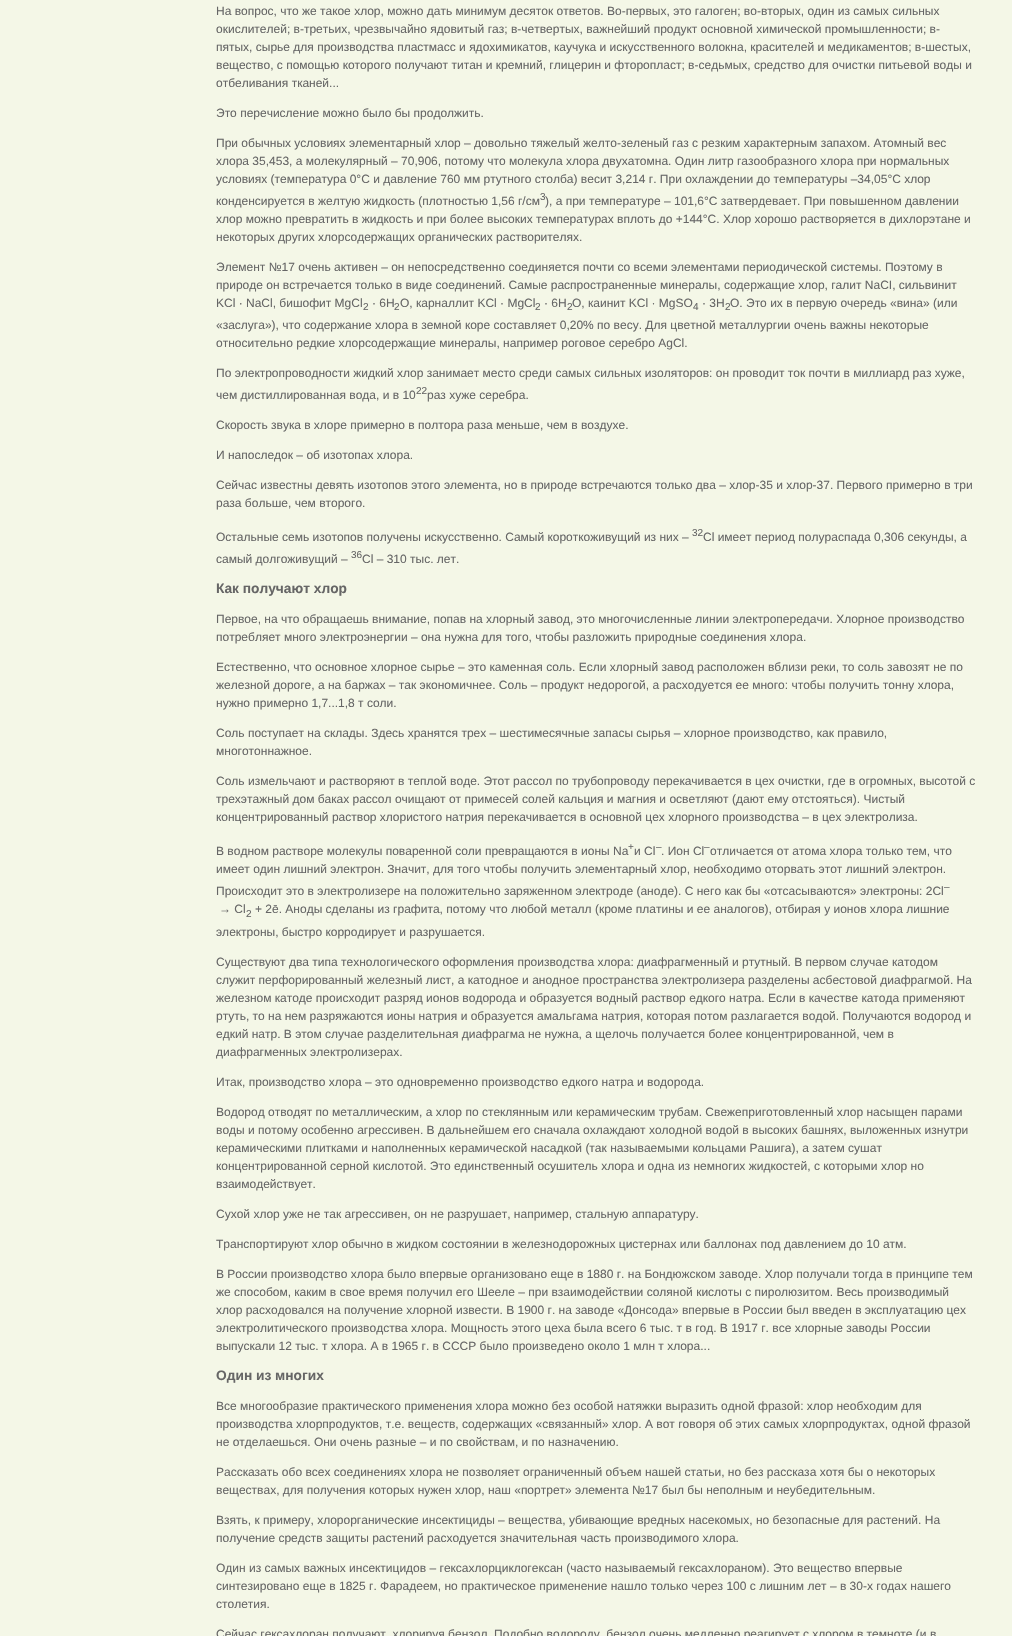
void draw(SkCanvas* canvas) {
  SkPaint paint;
  paint.setAntiAlias(true);
  auto face = [&](const char* family, int weight, float size, bool italic = false) {
    SkFontStyle style(weight, SkFontStyle::kNormal_Width,
      italic ? SkFontStyle::kItalic_Slant : SkFontStyle::kUpright_Slant);
    SkFont result(fontMgr->matchFamilyStyle(family, style), size);
    result.setSubpixel(true);
    return result;
  };
  canvas->clear(0xfff4f7e7);
  auto f0 = face("Liberation Sans", 400, 12);
  paint.setColor(0xff666666);
  {
    const struct { const char* s; float x, y; } items[] = {
      {"На вопрос, что же такое хлор, можно дать минимум десяток ответов. Во-первых, это галоген; во-вторых, один из самых сильных", 216, 15},
      {"окислителей; в-третьих, чрезвычайно ядовитый газ; в-четвертых, важнейший продукт основной химической промышленности; в-", 216, 33},
      {"пятых, сырье для производства пластмасс и ядохимикатов, каучука и искусственного волокна, красителей и медикаментов; в-шестых,", 216, 51},
      {"вещество, с помощью которого получают титан и кремний, глицерин и фторопласт; в-седьмых, средство для очистки питьевой воды и", 216, 69},
      {"отбеливания тканей...", 216, 87},
      {"Это перечисление можно было бы продолжить.", 216, 117},
      {"При обычных условиях элементарный хлор – довольно тяжелый желто-зеленый газ с резким характерным запахом. Атомный вес", 216, 147},
      {"хлора 35,453, а молекулярный – 70,906, потому что молекула хлора двухатомна. Один литр газообразного хлора при нормальных", 216, 165},
      {"условиях (температура 0°C и давление 760 мм ртутного столба) весит 3,214 г. При охлаждении до температуры –34,05°C хлор", 216, 183},
      {"конденсируется в желтую жидкость (плотностью 1,56 г/см", 216, 205},
    };
    for (auto [s, x, y] : items) {
      canvas->drawString(s, x, y, f0, paint);
    }
  }
  auto f1 = face("Liberation Sans", 400, 10);
  canvas->drawString("3", 540, 200, f1, paint);
  {
    const struct { const char* s; float x, y; } items[] = {
      {"), а при температуре – 101,6°C затвердевает. При повышенном давлении", 545, 205},
      {"хлор можно превратить в жидкость и при более высоких температурах вплоть до +144°C. Хлор хорошо растворяется в дихлорэтане и", 216, 223},
      {"некоторых других хлорсодержащих органических растворителях.", 216, 241},
      {"Элемент №17 очень активен – он непосредственно соединяется почти со всеми элементами периодической системы. Поэтому в", 216, 271},
      {"природе он встречается только в виде соединений. Самые распространенные минералы, содержащие хлор, галит NaCI, сильвинит", 216, 289},
      {"KCl · NaCl, бишофит MgCl", 216, 307},
    };
    for (auto [s, x, y] : items) {
      canvas->drawString(s, x, y, f0, paint);
    }
  }
  canvas->drawString("2", 363, 310, f1, paint);
  canvas->drawString("· 6H", 372, 307, f0, paint);
  canvas->drawString("2", 394, 310, f1, paint);
  canvas->drawString("O, карналлит KCl · MgCl", 400, 307, f0, paint);
  canvas->drawString("2", 535, 310, f1, paint);
  canvas->drawString("· 6Н", 544, 307, f0, paint);
  canvas->drawString("2", 567, 310, f1, paint);
  canvas->drawString("O, каинит KCl · МgSO", 572, 307, f0, paint);
  canvas->drawString("4", 693, 310, f1, paint);
  canvas->drawString("· 3Н", 702, 307, f0, paint);
  canvas->drawString("2", 725, 310, f1, paint);
  {
    const struct { const char* s; float x, y; } items[] = {
      {"О. Это их в первую очередь «вина» (или", 730, 307},
      {"«заслуга»), что содержание хлора в земной коре составляет 0,20% по весу. Для цветной металлургии очень важны некоторые", 216, 329},
      {"относительно редкие хлорсодержащие минералы, например роговое серебро AgСl.", 216, 347},
      {"По электропроводности жидкий хлор занимает место среди самых сильных изоляторов: он проводит ток почти в миллиард раз хуже,", 216, 377},
      {"чем дистиллированная вода, и в 10", 216, 399},
    };
    for (auto [s, x, y] : items) {
      canvas->drawString(s, x, y, f0, paint);
    }
  }
  canvas->drawString("22", 416, 394, f1, paint);
  {
    const struct { const char* s; float x, y; } items[] = {
      {"раз хуже серебра.", 427, 399},
      {"Скорость звука в хлоре примерно в полтора раза меньше, чем в воздухе.", 216, 429},
      {"И напоследок – об изотопах хлора.", 216, 459},
      {"Сейчас известны девять изотопов этого элемента, но в природе встречаются только два – хлор-35 и хлор-37. Первого примерно в три", 216, 489},
      {"раза больше, чем второго.", 216, 507},
      {"Остальные семь изотопов получены искусственно. Самый короткоживущий из них –", 216, 541},
    };
    for (auto [s, x, y] : items) {
      canvas->drawString(s, x, y, f0, paint);
    }
  }
  canvas->drawString("32", 692, 536, f1, paint);
  canvas->drawString("Cl имеет период полураспада 0,306 секунды, а", 703, 541, f0, paint);
  canvas->drawString("самый долгоживущий –", 216, 563, f0, paint);
  canvas->drawString("36", 351, 558, f1, paint);
  canvas->drawString("Cl – 310 тыс. лет.", 362, 563, f0, paint);
  auto f2 = face("Liberation Sans", 700, 13.75f);
  canvas->drawString("Как получают хлор", 216, 593, f2, paint);
  {
    const struct { const char* s; float x, y; } items[] = {
      {"Первое, на что обращаешь внимание, попав на хлорный завод, это многочисленные линии электропередачи. Хлорное производство", 216, 623},
      {"потребляет много электроэнергии – она нужна для того, чтобы разложить природные соединения хлора.", 216, 641},
      {"Естественно, что основное хлорное сырье – это каменная соль. Если хлорный завод расположен вблизи реки, то соль завозят не по", 216, 671},
      {"железной дороге, а на баржах – так экономичнее. Соль – продукт недорогой, а расходуется ее много: чтобы получить тонну хлора,", 216, 689},
      {"нужно примерно 1,7...1,8 т соли.", 216, 707},
      {"Соль поступает на склады. Здесь хранятся трех – шестимесячные запасы сырья – хлорное производство, как правило,", 216, 737},
      {"многотоннажное.", 216, 755},
      {"Соль измельчают и растворяют в теплой воде. Этот рассол по трубопроводу перекачивается в цех очистки, где в огромных, высотой с", 216, 785},
      {"трехэтажный дом баках рассол очищают от примесей солей кальция и магния и осветляют (дают ему отстояться). Чистый", 216, 803},
      {"концентрированный раствор хлористого натрия перекачивается в основной цех хлорного производства – в цех электролиза.", 216, 821},
      {"В водном растворе молекулы поваренной соли превращаются в ионы Na", 216, 855},
    };
    for (auto [s, x, y] : items) {
      canvas->drawString(s, x, y, f0, paint);
    }
  }
  canvas->drawString("+", 628, 850, f1, paint);
  canvas->drawString("и Сl", 634, 855, f0, paint);
  canvas->drawString("–", 656, 850, f1, paint);
  canvas->drawString(". Ион Сl", 661, 855, f0, paint);
  canvas->drawString("–", 704, 850, f1, paint);
  {
    const struct { const char* s; float x, y; } items[] = {
      {"отличается от атома хлора только тем, что", 710, 855},
      {"имеет один лишний электрон. Значит, для того чтобы получить элементарный хлор, необходимо оторвать этот лишний электрон.", 216, 873},
      {"Происходит это в электролизере на положительно заряженном электроде (аноде). С него как бы «отсасываются» электроны: 2Cl", 216, 895},
    };
    for (auto [s, x, y] : items) {
      canvas->drawString(s, x, y, f0, paint);
    }
  }
  canvas->drawString("–", 944, 890, f1, paint);
  canvas->drawString("→ Cl", 219, 913, f0, paint);
  canvas->drawString("2", 246, 917, f1, paint);
  {
    const struct { const char* s; float x, y; } items[] = {
      {"+ 2ē. Аноды сделаны из графита, потому что любой металл (кроме платины и ее аналогов), отбирая у ионов хлора лишние", 255, 913},
      {"электроны, быстро корродирует и разрушается.", 216, 936},
      {"Существуют два типа технологического оформления производства хлора: диафрагменный и ртутный. В первом случае катодом", 216, 966},
      {"служит перфорированный железный лист, а катодное и анодное пространства электролизера разделены асбестовой диафрагмой. На", 216, 984},
      {"железном катоде происходит разряд ионов водорода и образуется водный раствор едкого натра. Если в качестве катода применяют", 216, 1002},
      {"ртуть, то на нем разряжаются ионы натрия и образуется амальгама натрия, которая потом разлагается водой. Получаются водород и", 216, 1020},
      {"едкий натр. В этом случае разделительная диафрагма не нужна, а щелочь получается более концентрированной, чем в", 216, 1038},
      {"диафрагменных электролизерах.", 216, 1056},
      {"Итак, производство хлора – это одновременно производство едкого натра и водорода.", 216, 1086},
      {"Водород отводят по металлическим, а хлор по стеклянным или керамическим трубам. Свежеприготовленный хлор насыщен парами", 216, 1116},
      {"воды и потому особенно агрессивен. В дальнейшем его сначала охлаждают холодной водой в высоких башнях, выложенных изнутри", 216, 1134},
      {"керамическими плитками и наполненных керамической насадкой (так называемыми кольцами Рашига), а затем сушат", 216, 1152},
      {"концентрированной серной кислотой. Это единственный осушитель хлора и одна из немногих жидкостей, с которыми хлор но", 216, 1170},
      {"взаимодействует.", 216, 1188},
      {"Сухой хлор уже не так агрессивен, он не разрушает, например, стальную аппаратуру.", 216, 1218},
      {"Транспортируют хлор обычно в жидком состоянии в железнодорожных цистернах или баллонах под давлением до 10 атм.", 216, 1248},
      {"В России производство хлора было впервые организовано еще в 1880 г. на Бондюжском заводе. Хлор получали тогда в принципе тем", 216, 1278},
      {"же способом, каким в свое время получил его Шееле – при взаимодействии соляной кислоты с пиролюзитом. Весь производимый", 216, 1296},
      {"хлор расходовался на получение хлорной извести. В 1900 г. на заводе «Донсода» впервые в России был введен в эксплуатацию цех", 216, 1314},
      {"электролитического производства хлора. Мощность этого цеха была всего 6 тыс. т в год. В 1917 г. все хлорные заводы России", 216, 1332},
      {"выпускали 12 тыс. т хлора. А в 1965 г. в СССР было произведено около 1 млн т хлора...", 216, 1350},
    };
    for (auto [s, x, y] : items) {
      canvas->drawString(s, x, y, f0, paint);
    }
  }
  canvas->drawString("Один из многих", 216, 1380, f2, paint);
  {
    const struct { const char* s; float x, y; } items[] = {
      {"Все многообразие практического применения хлора можно без особой натяжки выразить одной фразой: хлор необходим для", 216, 1410},
      {"производства хлорпродуктов, т.е. веществ, содержащих «связанный» хлор. А вот говоря об этих самых хлорпродуктах, одной фразой", 216, 1428},
      {"не отделаешься. Они очень разные – и по свойствам, и по назначению.", 216, 1446},
      {"Рассказать обо всех соединениях хлора не позволяет ограниченный объем нашей статьи, но без рассказа хотя бы о некоторых", 216, 1476},
      {"веществах, для получения которых нужен хлор, наш «портрет» элемента №17 был бы неполным и неубедительным.", 216, 1494},
      {"Взять, к примеру, хлорорганические инсектициды – вещества, убивающие вредных насекомых, но безопасные для растений. На", 216, 1524},
      {"получение средств защиты растений расходуется значительная часть производимого хлора.", 216, 1542},
      {"Один из самых важных инсектицидов – гексахлорциклогексан (часто называемый гексахлораном). Это вещество впервые", 216, 1572},
      {"синтезировано еще в 1825 г. Фарадеем, но практическое применение нашло только через 100 с лишним лет – в 30-х годах нашего", 216, 1590},
      {"столетия.", 216, 1608},
      {"Сейчас гексахлоран получают, хлорируя бензол. Подобно водороду, бензол очень медленно реагирует с хлором в темноте (и в", 216, 1638},
    };
    for (auto [s, x, y] : items) {
      canvas->drawString(s, x, y, f0, paint);
    }
  }
}
